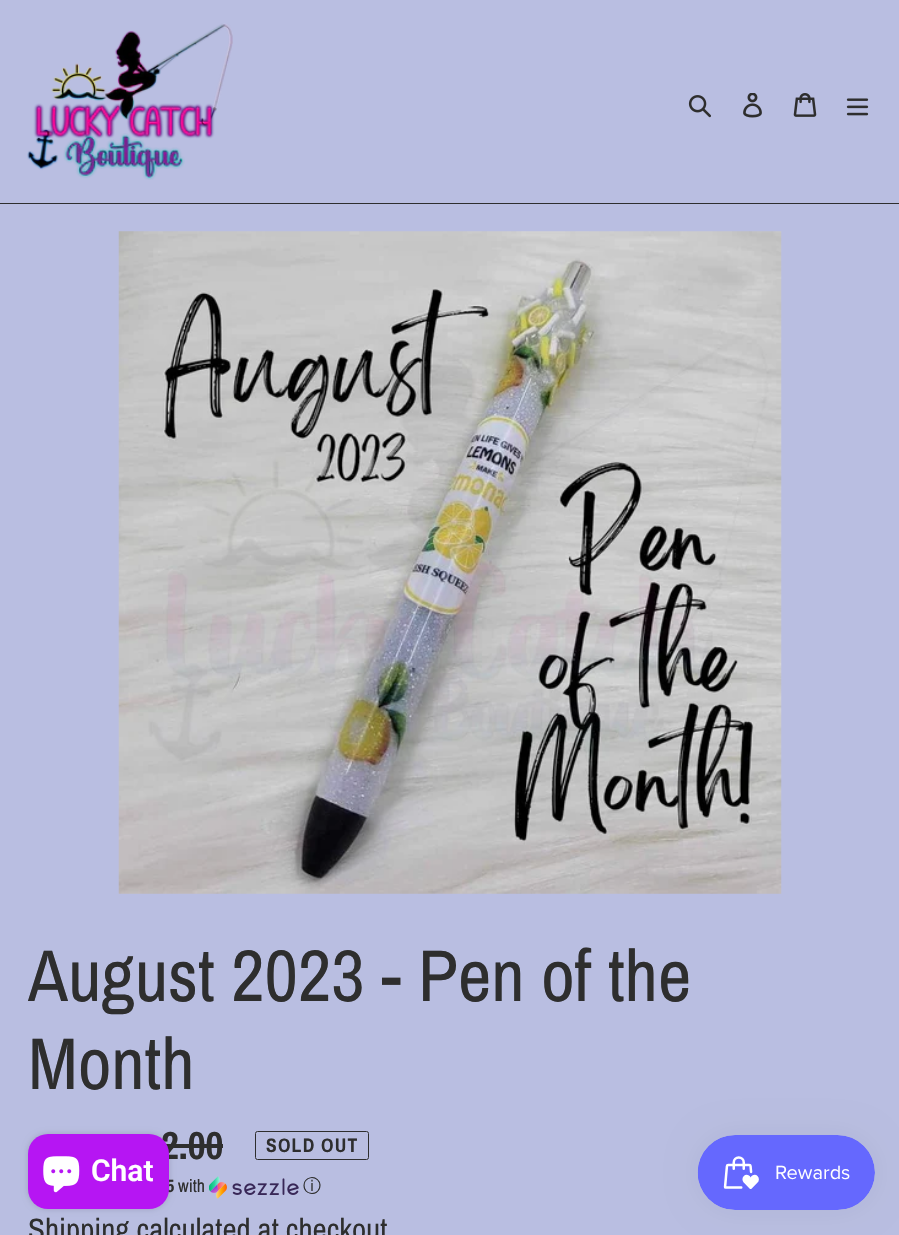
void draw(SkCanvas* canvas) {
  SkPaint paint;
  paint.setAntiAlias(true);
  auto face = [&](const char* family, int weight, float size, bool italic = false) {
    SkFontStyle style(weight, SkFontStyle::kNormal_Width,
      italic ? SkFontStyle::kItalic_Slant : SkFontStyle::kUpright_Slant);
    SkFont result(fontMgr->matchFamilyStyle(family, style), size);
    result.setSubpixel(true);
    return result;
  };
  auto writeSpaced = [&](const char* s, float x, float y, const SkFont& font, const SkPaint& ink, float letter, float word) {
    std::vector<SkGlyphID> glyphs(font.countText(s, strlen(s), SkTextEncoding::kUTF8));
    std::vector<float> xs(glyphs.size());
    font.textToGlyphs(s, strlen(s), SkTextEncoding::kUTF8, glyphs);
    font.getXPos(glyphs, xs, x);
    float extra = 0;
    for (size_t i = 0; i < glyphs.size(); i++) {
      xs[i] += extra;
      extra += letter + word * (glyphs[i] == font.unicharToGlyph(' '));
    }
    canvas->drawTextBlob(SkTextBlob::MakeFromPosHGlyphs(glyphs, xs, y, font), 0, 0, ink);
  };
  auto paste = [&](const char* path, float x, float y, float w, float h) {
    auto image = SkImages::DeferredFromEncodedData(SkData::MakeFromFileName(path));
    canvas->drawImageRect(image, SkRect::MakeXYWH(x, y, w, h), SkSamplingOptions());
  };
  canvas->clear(0xffb9bee1);
  paint.setColor(0xff2e2e2e);
  canvas->drawRect(SkRect::MakeXYWH(0, 203, 899, 1), paint);
  paste("img/1.png", 27, 23, 206, 157);
  paste("img/2.png", 688, 95, 23, 23);
  paste("img/3.png", 743, 93, 19, 25);
  paste("img/4.png", 793, 93, 24, 24);
  paste("img/5.png", 846, 98, 23, 18);
  paste("img/6.png", 118, 231, 664, 663);
  canvas->drawRect(SkRect::MakeXYWH(166, 1144, 57, 4), paint);
  paint.setStroke(true);
  paint.setStrokeWidth(1);
  canvas->drawRoundRect(SkRect::MakeXYWH(255.5f, 1131.5f, 113, 28), 2, 2, paint);
  paste("img/7.png", 209, 1176, 90, 23);
  paint.setStroke(false);
  paint.setColor(0x0d000000);
  paint.setMaskFilter(SkMaskFilter::MakeBlur(kNormal_SkBlurStyle, 15.5f));
  canvas->drawRoundRect(SkRect::MakeXYWH(698, 1135, 177, 75), 37.5f, 37.5f, paint);
  paint.setMaskFilter(nullptr);
  paste("img/8.png", 697, 1135, 178, 75);
  paint.setColor(0x26000000);
  paint.setMaskFilter(SkMaskFilter::MakeBlur(kNormal_SkBlurStyle, 3));
  canvas->drawRoundRect(SkRect::MakeXYWH(28, 1134, 141, 75), 20, 20, paint);
  paint.setMaskFilter(nullptr);
  auto f0 = face("Archivo Narrow", 400, 73.1f);
  paint.setColor(0xff2e2e2e);
  canvas->drawString("August 2023 - Pen of the", 28, 1001, f0, paint);
  canvas->drawString("Month", 28, 1089, f0, paint);
  auto f1 = face("Archivo Narrow", 700, 39);
  canvas->drawString("2.00", 161, 1159, f1, paint);
  auto f2 = face("Archivo Narrow", 700, 19.5f);
  writeSpaced("SOLD OUT", 266, 1152, f2, paint, 1.25f, 0);
  auto f3 = face("Archivo Narrow", 700, 18);
  canvas->drawString("5", 166, 1192, f3, paint);
  auto f4 = face("Archivo Narrow", 400, 18);
  canvas->drawString("with", 178, 1192, f4, paint);
  auto f5 = face("WenQuanYi Zen Hei", 500, 18);
  canvas->drawString("ⓘ", 303, 1192, f5, paint);
  auto f6 = face("Archivo Narrow", 400, 30.9f);
  canvas->drawString("Shipping calculated at checkout", 28, 1240, f6, paint);
  paint.setColor(0xffb615f3);
  canvas->drawRoundRect(SkRect::MakeXYWH(28, 1134, 141, 75), 20, 20, paint);
  paste("img/9.png", 43, 1156, 37, 37);
  auto f7 = face("Roboto", 600, 30);
  paint.setColor(0xffffffff);
  canvas->drawString("Chat", 91, 1181, f7, paint);
}
